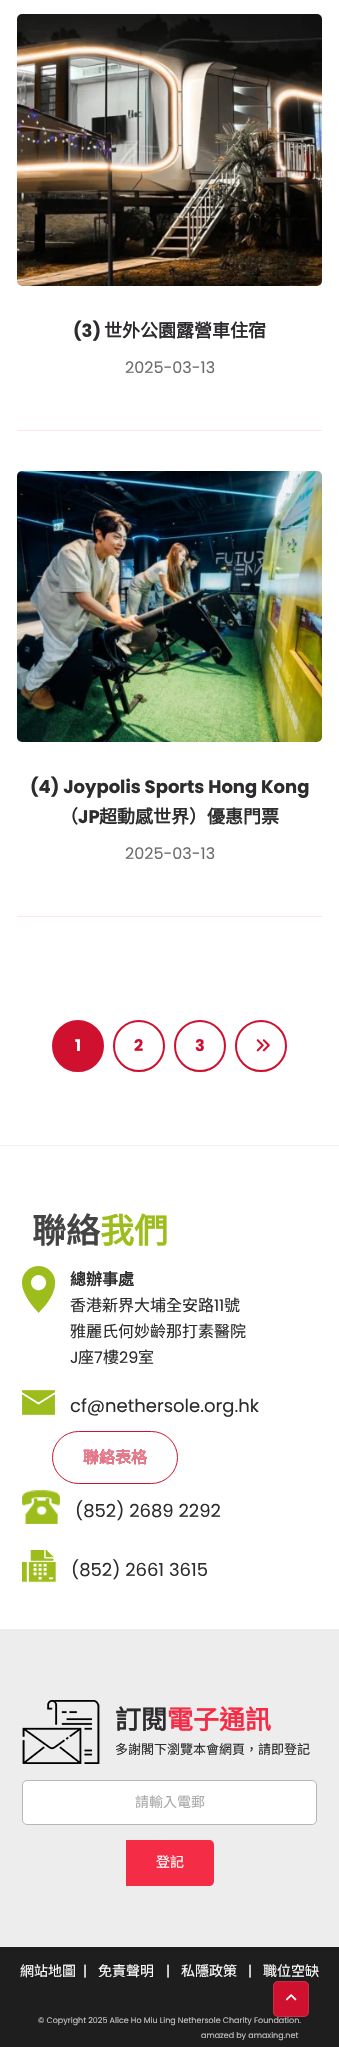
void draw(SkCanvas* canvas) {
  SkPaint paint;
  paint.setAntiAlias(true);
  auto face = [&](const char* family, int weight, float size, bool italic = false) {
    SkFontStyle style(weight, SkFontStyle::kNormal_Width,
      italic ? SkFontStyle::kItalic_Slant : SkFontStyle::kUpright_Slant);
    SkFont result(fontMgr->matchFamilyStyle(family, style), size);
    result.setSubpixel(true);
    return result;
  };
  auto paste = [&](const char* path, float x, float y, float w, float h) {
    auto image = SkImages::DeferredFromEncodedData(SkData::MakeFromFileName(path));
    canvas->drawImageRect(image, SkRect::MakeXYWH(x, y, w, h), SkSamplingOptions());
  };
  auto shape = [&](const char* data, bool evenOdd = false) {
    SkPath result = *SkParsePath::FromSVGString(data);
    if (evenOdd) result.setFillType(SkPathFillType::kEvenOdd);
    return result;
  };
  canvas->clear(0xffffffff);
  paint.setColor(0xfffae7ea);
  canvas->drawRect(SkRect::MakeXYWH(17, 430, 305, 1), paint);
  paste("img/1.png", 17, 14, 305, 272);
  canvas->drawRect(SkRect::MakeXYWH(17, 916, 305, 1), paint);
  paste("img/2.png", 17, 471, 305, 271);
  paint.setColor(0xffcf112f);
  canvas->drawCircle(78, 1046, 25, paint);
  paint.setStroke(true);
  paint.setStrokeWidth(2);
  canvas->drawCircle(78, 1046, 25, paint);
  canvas->drawCircle(139, 1046, 25, paint);
  canvas->drawCircle(200, 1046, 25, paint);
  canvas->drawCircle(261, 1046, 25, paint);
  paste("img/3.png", 256, 1039, 14, 13);
  paint.setStroke(false);
  paint.setColor(0xfff1f1f1);
  canvas->drawRect(SkRect::MakeXYWH(0, 1145, 339, 1), paint);
  paste("img/4.png", 22, 1266, 33, 47);
  paste("img/5.png", 22, 1390, 33, 25);
  paint.setStroke(true);
  paint.setStrokeWidth(1);
  paint.setColor(0xffcf112f);
  canvas->drawRoundRect(SkRect::MakeXYWH(52.5f, 1431.5f, 125, 52), 26, 26, paint);
  paste("img/6.png", 22, 1490, 38, 34);
  paste("img/7.png", 22, 1550, 34, 33);
  paint.setStroke(false);
  paint.setColor(0xffededed);
  canvas->drawRect(SkRect::MakeXYWH(0, 1629, 339, 318), paint);
  paste("img/8.png", 22, 1700, 78, 64);
  paint.setColor(0xffffffff);
  canvas->drawRoundRect(SkRect::MakeXYWH(22.5f, 1780.5f, 294, 44), 4.5f, 4.5f, paint);
  paint.setStroke(true);
  paint.setColor(0xffb7b7b7);
  canvas->drawRoundRect(SkRect::MakeXYWH(22.5f, 1780.5f, 294, 44), 4.5f, 4.5f, paint);
  paint.setStroke(false);
  paint.setColor(0xfff52c46);
  canvas->drawPath(shape("M126 1840H209C212 1840 214 1842 214 1845V1881C214 1884 212 1886 209 1886H126Z"), paint);
  paint.setColor(0xff1e1e1e);
  canvas->drawRect(SkRect::MakeXYWH(0, 1947, 339, 100), paint);
  auto f0 = face("Poppins", 700, 18);
  paint.setColor(0xff2e2b2e);
  canvas->drawString("(3)", 73, 337, f0, paint);
  auto f1 = face("Noto Sans CJK HK", 700, 18);
  canvas->drawString("世外公園露營車住宿", 104, 337, f1, paint);
  auto f2 = face("Poppins", 400, 16);
  paint.setColor(0xff6d6b6d);
  canvas->drawString("2025-03-13", 125, 373, f2, paint);
  paint.setColor(0xff2e2b2e);
  canvas->drawString("(4) Joypolis Sports Hong Kong", 30, 793, f0, paint);
  canvas->drawString("（", 60, 823, f1, paint);
  canvas->drawString("JP", 78, 823, f0, paint);
  canvas->drawString("超動感世界）優惠門票", 99, 823, f1, paint);
  paint.setColor(0xff6d6b6d);
  canvas->drawString("2025-03-13", 125, 859, f2, paint);
  auto f3 = face("Poppins", 700, 16);
  paint.setColor(0xffffffff);
  canvas->drawString("1", 75, 1051, f3, paint);
  paint.setColor(0xffcf112f);
  canvas->drawString("2", 134, 1051, f3, paint);
  canvas->drawString("3", 195, 1051, f3, paint);
  auto f4 = face("Noto Sans CJK HK", 700, 34);
  paint.setColor(0xff444444);
  canvas->drawString("聯絡", 32, 1243, f4, paint);
  paint.setColor(0xff9dbd1c);
  canvas->drawString("我們", 100, 1243, f4, paint);
  auto f5 = face("Noto Sans CJK HK", 700, 16);
  paint.setColor(0xff2e2b2e);
  canvas->drawString("總辦事處", 70, 1285, f5, paint);
  auto f6 = face("Noto Sans CJK HK", 400, 16);
  canvas->drawString("香港新界大埔全安路", 70, 1311, f6, paint);
  canvas->drawString("11", 214, 1311, f2, paint);
  canvas->drawString("號", 224, 1311, f6, paint);
  canvas->drawString("雅麗氏何妙齡那打素醫院", 70, 1337, f6, paint);
  canvas->drawString("J", 70, 1363, f2, paint);
  canvas->drawString("座", 78, 1363, f6, paint);
  canvas->drawString("7", 94, 1363, f2, paint);
  canvas->drawString("樓", 103, 1363, f6, paint);
  canvas->drawString("29", 119, 1363, f2, paint);
  canvas->drawString("室", 138, 1363, f6, paint);
  auto f7 = face("Poppins", 400, 18);
  canvas->drawString("cf@nethersole.org.hk", 70, 1412, f7, paint);
  paint.setColor(0xffcf112f);
  canvas->drawString("聯絡表格", 83, 1463, f5, paint);
  paint.setColor(0xffe58090);
  canvas->drawString("聯絡表格", 83, 1463, f5, paint);
  paint.setColor(0xff2e2b2e);
  canvas->drawString("(852) 2689 2292", 75, 1517, f7, paint);
  canvas->drawString("(852) 2661 3615", 71, 1576, f7, paint);
  auto f8 = face("Noto Sans CJK HK", 700, 26);
  canvas->drawString("訂閱", 115, 1729, f8, paint);
  paint.setColor(0xfff52c46);
  canvas->drawString("電子通訊", 167, 1729, f8, paint);
  auto f9 = face("Noto Sans CJK HK", 400, 13);
  paint.setColor(0xff2e2b2e);
  canvas->drawString("多謝閣下瀏覽本會網頁，請即登記", 115, 1754, f9, paint);
  auto f10 = face("Noto Sans CJK HK", 400, 14);
  paint.setColor(0xffa9a9a9);
  canvas->drawString("請輸入電郵", 135, 1807, f10, paint);
  paint.setColor(0xffffffff);
  canvas->drawString("登記", 156, 1867, f10, paint);
  canvas->drawString("網站地圖", 20, 1976, f10, paint);
  auto f11 = face("Poppins", 400, 14);
  canvas->drawString("|", 83, 1976, f11, paint);
  canvas->drawString("免責聲明", 98, 1976, f10, paint);
  canvas->drawString("|", 166, 1976, f11, paint);
  canvas->drawString("私隱政策", 181, 1976, f10, paint);
  canvas->drawString("|", 248, 1976, f11, paint);
  canvas->drawString("職位空缺", 263, 1976, f10, paint);
  auto f12 = face("Poppins", 400, 8);
  paint.setColor(0xffc5c5c5);
  canvas->drawString("© Copyright 2025 Alice Ho Miu Ling Nethersole Charity Foundation.", 38, 2023, f12, paint);
  canvas->drawString("amazed by amaxing.net", 201, 2038, f12, paint);
  paint.setColor(0xffcf112f);
  canvas->drawRoundRect(SkRect::MakeXYWH(273, 1981, 36, 36), 5, 5, paint);
  paint.setStroke(true);
  paint.setColor(0x33a7a7a7);
  canvas->drawRoundRect(SkRect::MakeXYWH(273.5f, 1981.5f, 35, 35), 4.5f, 4.5f, paint);
  paste("img/9.png", 285, 1994, 12, 7);
}
